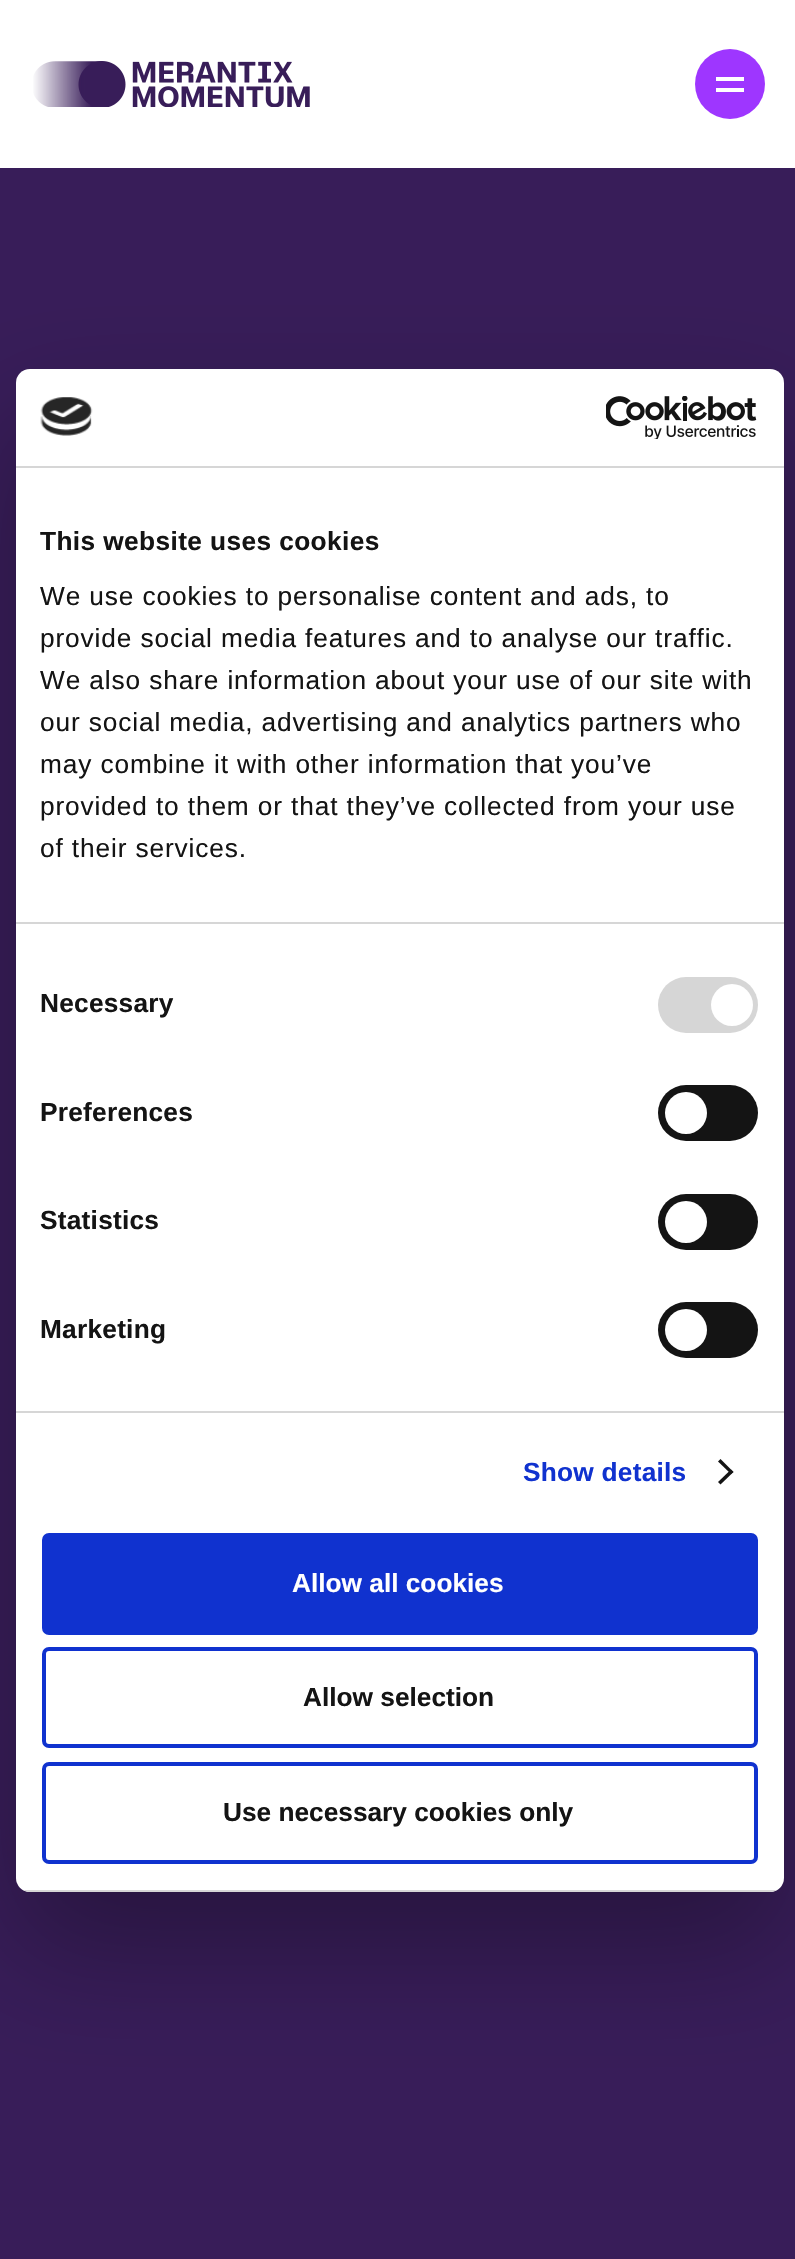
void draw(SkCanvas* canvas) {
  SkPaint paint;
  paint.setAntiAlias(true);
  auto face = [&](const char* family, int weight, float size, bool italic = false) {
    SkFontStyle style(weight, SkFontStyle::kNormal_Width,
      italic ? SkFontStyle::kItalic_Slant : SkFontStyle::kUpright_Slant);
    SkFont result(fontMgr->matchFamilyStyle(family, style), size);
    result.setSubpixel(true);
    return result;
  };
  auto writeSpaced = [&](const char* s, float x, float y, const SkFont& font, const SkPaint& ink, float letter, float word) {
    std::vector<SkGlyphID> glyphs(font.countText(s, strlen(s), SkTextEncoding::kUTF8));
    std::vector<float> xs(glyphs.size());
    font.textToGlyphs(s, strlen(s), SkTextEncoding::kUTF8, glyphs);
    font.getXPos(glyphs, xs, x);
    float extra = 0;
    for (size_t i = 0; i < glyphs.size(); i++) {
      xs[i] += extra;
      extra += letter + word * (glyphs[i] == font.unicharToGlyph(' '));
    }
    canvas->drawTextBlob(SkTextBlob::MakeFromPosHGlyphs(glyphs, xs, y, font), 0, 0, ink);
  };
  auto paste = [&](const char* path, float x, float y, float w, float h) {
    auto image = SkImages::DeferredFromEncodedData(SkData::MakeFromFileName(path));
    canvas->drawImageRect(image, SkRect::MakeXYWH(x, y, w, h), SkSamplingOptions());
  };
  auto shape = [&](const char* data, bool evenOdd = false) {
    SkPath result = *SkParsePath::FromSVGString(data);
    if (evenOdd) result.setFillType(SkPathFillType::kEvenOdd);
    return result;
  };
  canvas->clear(0xff381d59);
  paint.setColor(0xffffffff);
  canvas->drawRect(SkRect::MakeXYWH(0, 0, 795, 168), paint);
  paste("img/1.png", 33, 61, 277, 46);
  paint.setColor(0xff9e36ff);
  canvas->drawCircle(730, 84, 35, paint);
  paint.setColor(0xffffffff);
  canvas->drawRect(SkRect::MakeXYWH(716, 77, 28, 4), paint);
  canvas->drawRect(SkRect::MakeXYWH(716, 88, 28, 4), paint);
  paint.setColor(0x4d000000);
  paint.setMaskFilter(SkMaskFilter::MakeBlur(kNormal_SkBlurStyle, 59.5f));
  canvas->drawRoundRect(SkRect::MakeXYWH(16, 425, 768, 1523), 14, 14, paint);
  paint.setMaskFilter(nullptr);
  paint.setColor(0xffffffff);
  canvas->drawRoundRect(SkRect::MakeXYWH(16, 369, 768, 1523), 14, 14, paint);
  paint.setColor(0xffd6d6d6);
  canvas->drawRect(SkRect::MakeXYWH(16, 466, 768, 2), paint);
  paste("img/2.png", 40, 397, 53, 39);
  paste("img/3.png", 606, 396, 151, 43);
  canvas->drawRect(SkRect::MakeXYWH(16, 922, 768, 2), paint);
  canvas->drawRect(SkRect::MakeXYWH(16, 1411, 768, 2), paint);
  canvas->drawRoundRect(SkRect::MakeXYWH(658, 977, 100, 56), 28, 28, paint);
  paint.setColor(0xffffffff);
  canvas->drawCircle(732, 1005, 21, paint);
  paint.setColor(0xff141414);
  canvas->drawRoundRect(SkRect::MakeXYWH(658, 1085, 100, 56), 28, 28, paint);
  paint.setColor(0xffffffff);
  canvas->drawCircle(686, 1113, 21, paint);
  paint.setColor(0xff141414);
  canvas->drawRoundRect(SkRect::MakeXYWH(658, 1194, 100, 56), 28, 28, paint);
  paint.setColor(0xffffffff);
  canvas->drawCircle(686, 1222, 21, paint);
  paint.setColor(0xff141414);
  canvas->drawRoundRect(SkRect::MakeXYWH(658, 1302, 100, 56), 28, 28, paint);
  paint.setColor(0xffffffff);
  canvas->drawCircle(686, 1330, 21, paint);
  paint.setColor(0xff141414);
  canvas->drawPath(shape("M720.5 1459L733.5 1472L731 1474L718 1461.5Z"), paint);
  canvas->drawPath(shape("M731 1469.5L733.5 1472L720.5 1484.5L718 1482Z"), paint);
  canvas->save();
  canvas->clipPath(shape("M30 369H770C777.5 369 784 375.5 784 383V1878C784 1885.5 777.5 1892 770 1892H30C22.5 1892 16 1885.5 16 1878V383C16 375.5 22.5 369 30 369Z"), true);
  paint.setColor(0xffd6d6d6);
  canvas->drawRect(SkRect::MakeXYWH(16, 1890, 768, 2), paint);
  canvas->restore();
  paint.setColor(0xff1032cf);
  canvas->drawRoundRect(SkRect::MakeXYWH(44, 1535, 712, 98), 5, 5, paint);
  paint.setStroke(true);
  paint.setStrokeWidth(4);
  canvas->drawRoundRect(SkRect::MakeXYWH(44, 1535, 712, 98), 5, 5, paint);
  canvas->drawRoundRect(SkRect::MakeXYWH(44, 1649, 712, 97), 5, 5, paint);
  canvas->drawRoundRect(SkRect::MakeXYWH(44, 1764, 712, 98), 5, 5, paint);
  auto f0 = face("Liberation Sans", 700, 26.25f);
  paint.setStroke(false);
  paint.setColor(0xff141414);
  writeSpaced("This website uses cookies", 40, 550, f0, paint, 0.4f, 0);
  auto f1 = face("Liberation Sans", 400, 26.25f);
  {
    const struct { const char* s; float x, y; } items[] = {
      {"We use cookies to personalise content and ads, to", 40, 605},
      {"provide social media features and to analyse our traffic.", 40, 647},
      {"We also share information about your use of our site with", 40, 689},
      {"our social media, advertising and analytics partners who", 40, 731},
      {"may combine it with other information that you’ve", 40, 773},
      {"provided to them or that they’ve collected from your use", 40, 815},
      {"of their services.", 40, 857},
    };
    for (auto [s, x, y] : items) {
      writeSpaced(s, x, y, f1, paint, 0.88f, 0);
    }
  }
  {
    const struct { const char* s; float x, y; } items[] = {
      {"Necessary", 40, 1012},
      {"Preferences", 40, 1121},
      {"Statistics", 40, 1229},
      {"Marketing", 40, 1338},
    };
    for (auto [s, x, y] : items) {
      writeSpaced(s, x, y, f0, paint, 0.25f, 0);
    }
  }
  paint.setColor(0xff1032cf);
  writeSpaced("Show details", 523, 1481, f0, paint, 0.25f, 0);
  paint.setColor(0xffffffff);
  canvas->drawString("Allow all cookies", 292, 1592, f0, paint);
  paint.setColor(0xff141414);
  canvas->drawString("Allow selection", 303, 1706, f0, paint);
  canvas->drawString("Use necessary cookies only", 223, 1821, f0, paint);
}
